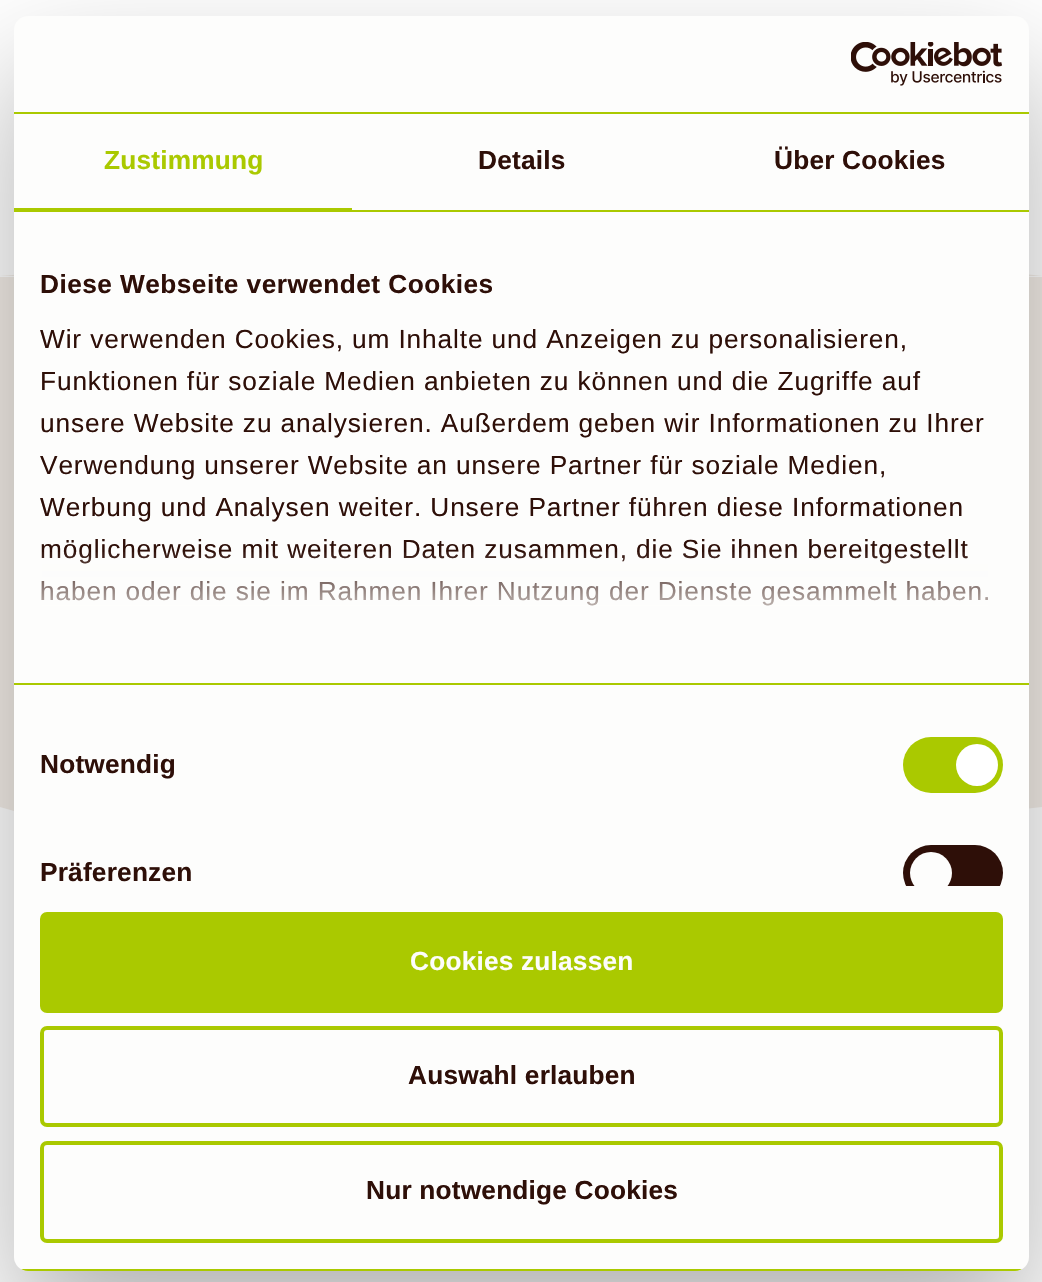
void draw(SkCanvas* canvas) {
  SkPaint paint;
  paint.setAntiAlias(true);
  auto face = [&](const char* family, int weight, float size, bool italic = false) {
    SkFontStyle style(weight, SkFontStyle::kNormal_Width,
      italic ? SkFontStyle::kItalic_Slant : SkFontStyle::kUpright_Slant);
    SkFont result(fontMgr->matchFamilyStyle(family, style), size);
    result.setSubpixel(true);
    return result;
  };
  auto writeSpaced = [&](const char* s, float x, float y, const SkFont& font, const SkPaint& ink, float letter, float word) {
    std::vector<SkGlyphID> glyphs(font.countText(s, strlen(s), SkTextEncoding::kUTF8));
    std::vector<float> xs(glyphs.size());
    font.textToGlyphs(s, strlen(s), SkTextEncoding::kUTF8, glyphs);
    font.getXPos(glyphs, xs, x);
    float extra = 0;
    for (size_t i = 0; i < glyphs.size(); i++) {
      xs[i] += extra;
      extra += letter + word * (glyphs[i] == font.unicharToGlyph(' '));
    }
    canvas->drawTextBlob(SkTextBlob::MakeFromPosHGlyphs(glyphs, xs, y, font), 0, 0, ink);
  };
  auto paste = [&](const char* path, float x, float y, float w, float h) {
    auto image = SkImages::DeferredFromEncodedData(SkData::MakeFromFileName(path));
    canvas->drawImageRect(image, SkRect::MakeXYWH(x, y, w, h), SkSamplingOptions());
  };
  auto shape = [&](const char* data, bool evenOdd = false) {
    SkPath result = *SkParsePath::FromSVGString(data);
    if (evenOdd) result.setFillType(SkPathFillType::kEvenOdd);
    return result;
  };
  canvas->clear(0xffffffff);
  paint.setColor(0xfff3eee8);
  canvas->drawPath(shape("M626 229L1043 276H0Z"), paint);
  canvas->drawRect(SkRect::MakeXYWH(0, 277, 1042, 530), paint);
  canvas->drawPath(shape("M0 807H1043L292 890Z"), paint);
  paint.setColor(0x4d000000);
  paint.setMaskFilter(SkMaskFilter::MakeBlur(kNormal_SkBlurStyle, 59.5f));
  canvas->drawRoundRect(SkRect::MakeXYWH(14, 72, 1015, 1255), 14, 14, paint);
  paint.setMaskFilter(nullptr);
  paint.setColor(0xfffdfdfc);
  canvas->drawRoundRect(SkRect::MakeXYWH(14, 16, 1015, 1255), 14, 14, paint);
  paint.setColor(0xffaac900);
  canvas->drawRect(SkRect::MakeXYWH(14, 112, 1015, 2), paint);
  paste("img/1.png", 851, 42, 152, 44);
  {
    const struct { float x, y, w, h; SkColor color; } items[] = {
      {14, 210, 1015, 2, 0xffaac900},
      {14, 208, 338, 2, 0xffaac900},
      {14, 683, 1015, 2, 0xffaac900},
    };
    for (auto [x, y, w, h, color] : items) {
      paint.setColor(color);
      canvas->drawRect(SkRect::MakeXYWH(x, y, w, h), paint);
    }
  }
  canvas->drawRoundRect(SkRect::MakeXYWH(903, 737, 100, 56), 28, 28, paint);
  paint.setColor(0xffffffff);
  canvas->drawCircle(977, 765, 21, paint);
  canvas->save();
  canvas->clipRect(SkRect::MakeXYWH(14, 212, 1015, 674));
  paint.setColor(0xff2e0f08);
  canvas->drawRoundRect(SkRect::MakeXYWH(903, 845, 100, 56), 28, 28, paint);
  paint.setColor(0xfffdfdfc);
  canvas->drawCircle(931, 873, 21, paint);
  canvas->restore();
  canvas->save();
  canvas->clipPath(shape("M28 16H1015C1022.5 16 1029 22.5 1029 30V1257C1029 1264.5 1022.5 1271 1015 1271H28C20.5 1271 14 1264.5 14 1257V30C14 22.5 20.5 16 28 16Z"), true);
  paint.setColor(0xffaac900);
  canvas->drawRect(SkRect::MakeXYWH(14, 1269, 1015, 2), paint);
  canvas->restore();
  canvas->drawRoundRect(SkRect::MakeXYWH(42, 914, 959, 97), 5, 5, paint);
  paint.setStroke(true);
  paint.setStrokeWidth(4);
  canvas->drawRoundRect(SkRect::MakeXYWH(42, 914, 959, 97), 5, 5, paint);
  canvas->drawRoundRect(SkRect::MakeXYWH(42, 1028, 959, 97), 5, 5, paint);
  canvas->drawRoundRect(SkRect::MakeXYWH(42, 1143, 959, 98), 5, 5, paint);
  auto f0 = face("Liberation Sans", 700, 26.25f);
  paint.setStroke(false);
  writeSpaced("Zustimmung", 104, 169, f0, paint, 0.2f, 0);
  paint.setColor(0xff2e0f08);
  writeSpaced("Details", 478, 169, f0, paint, 0.2f, 0);
  writeSpaced("Über Cookies", 774, 169, f0, paint, 0.2f, 0);
  writeSpaced("Diese Webseite verwendet Cookies", 40, 293, f0, paint, 0.45f, 0);
  auto f1 = face("Liberation Sans", 400, 26.25f);
  {
    const struct { const char* s; float x, y; } items[] = {
      {"Wir verwenden Cookies, um Inhalte und Anzeigen zu personalisieren,", 40, 348},
      {"Funktionen für soziale Medien anbieten zu können und die Zugriffe auf", 40, 390},
      {"unsere Website zu analysieren. Außerdem geben wir Informationen zu Ihrer", 40, 432},
      {"Verwendung unserer Website an unsere Partner für soziale Medien,", 40, 474},
      {"Werbung und Analysen weiter. Unsere Partner führen diese Informationen", 40, 516},
      {"möglicherweise mit weiteren Daten zusammen, die Sie ihnen bereitgestellt", 40, 558},
      {"haben oder die sie im Rahmen Ihrer Nutzung der Dienste gesammelt haben.", 40, 600},
    };
    for (auto [s, x, y] : items) {
      writeSpaced(s, x, y, f1, paint, 0.88f, 0);
    }
  }
  {
    const SkColor colors[] = {0xfffdfdfc, 0xccfdfdfc, 0x00fdfdfc};
    const float stops[] = {0, 0.5f, 1};
    const SkPoint ends[] = {{510, 682}, {510, 550}};
    paint.setShader(SkGradientShader::MakeLinear(ends, colors, stops, 3, SkTileMode::kClamp));
    paint.setAlpha(255);
  }
  canvas->drawRect(SkRect::MakeXYWH(42, 552, 946, 54), paint);
  paint.setShader(nullptr);
  paint.setColor(0xff2e0f08);
  writeSpaced("Notwendig", 40, 773, f0, paint, 0.2f, 0);
  writeSpaced("Präferenzen", 40, 881, f0, paint, 0.2f, 0);
  paint.setColor(0xfffdfdfc);
  writeSpaced("Cookies zulassen", 410, 970, f0, paint, 0.2f, 0);
  paint.setColor(0xff2e0f08);
  writeSpaced("Auswahl erlauben", 408, 1084, f0, paint, 0.2f, 0);
  writeSpaced("Nur notwendige Cookies", 366, 1199, f0, paint, 0.2f, 0);
}
